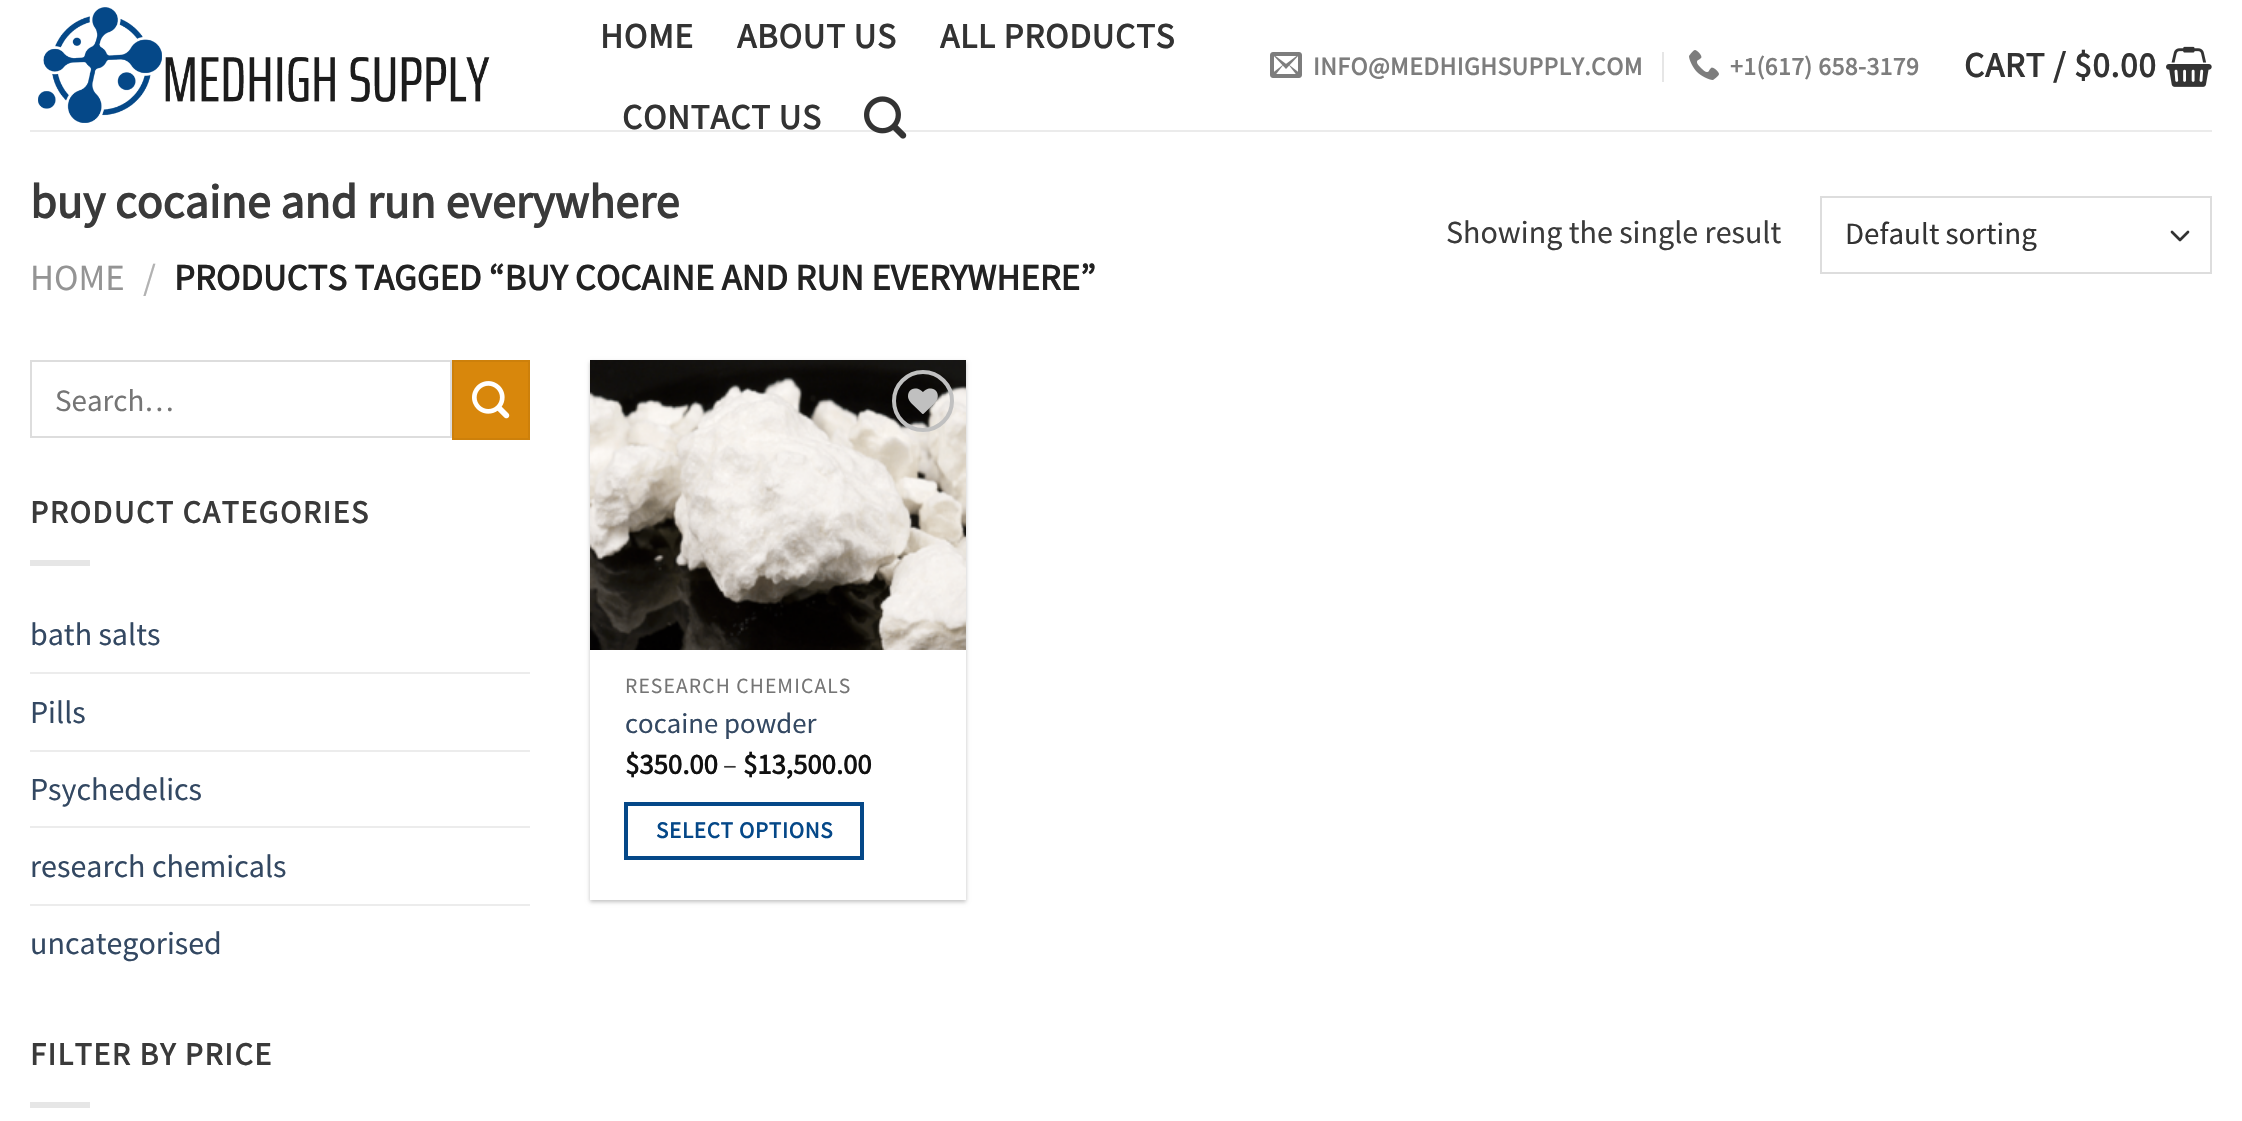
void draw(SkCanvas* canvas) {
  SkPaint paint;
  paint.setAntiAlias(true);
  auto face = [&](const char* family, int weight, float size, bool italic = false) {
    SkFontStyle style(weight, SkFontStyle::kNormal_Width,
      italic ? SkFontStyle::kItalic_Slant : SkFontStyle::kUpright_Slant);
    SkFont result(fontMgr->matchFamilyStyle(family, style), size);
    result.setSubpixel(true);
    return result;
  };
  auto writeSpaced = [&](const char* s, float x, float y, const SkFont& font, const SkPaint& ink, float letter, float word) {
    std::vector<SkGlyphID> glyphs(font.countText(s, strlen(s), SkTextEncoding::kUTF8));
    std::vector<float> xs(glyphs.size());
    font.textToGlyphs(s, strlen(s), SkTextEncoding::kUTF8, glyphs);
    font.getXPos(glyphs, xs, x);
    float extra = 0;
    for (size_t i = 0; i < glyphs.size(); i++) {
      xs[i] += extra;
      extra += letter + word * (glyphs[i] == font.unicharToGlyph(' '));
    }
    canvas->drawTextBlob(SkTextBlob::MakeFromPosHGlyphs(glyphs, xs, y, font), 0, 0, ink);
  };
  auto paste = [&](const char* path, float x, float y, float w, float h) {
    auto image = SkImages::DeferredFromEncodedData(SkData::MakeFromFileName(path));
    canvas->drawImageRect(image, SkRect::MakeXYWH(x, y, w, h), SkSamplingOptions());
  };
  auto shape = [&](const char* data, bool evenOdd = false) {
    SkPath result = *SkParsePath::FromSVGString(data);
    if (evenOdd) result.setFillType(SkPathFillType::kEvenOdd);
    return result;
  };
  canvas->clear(0xffffffff);
  paste("img/1.png", 38, 7, 452, 116);
  paste("img/2.png", 864, 96, 43, 43);
  paste("img/3.png", 1270, 52, 32, 26);
  paint.setColor(0xffe6e6e6);
  canvas->drawRect(SkRect::MakeXYWH(1662, 52, 2, 30), paint);
  paste("img/4.png", 1689, 50, 30, 30);
  paste("img/5.png", 2166, 46, 46, 41);
  paint.setColor(0x1a3a3a3a);
  canvas->drawRect(SkRect::MakeXYWH(30, 130, 2182, 2), paint);
  paint.setStroke(true);
  paint.setStrokeWidth(2.7f);
  paint.setStrokeCap(SkPaint::kRound_Cap);
  paint.setStrokeJoin(SkPaint::kRound_Join);
  paint.setColor(0xff333333);
  canvas->drawPath(shape("M2172 232L2180 240L2188 232"), paint);
  paint.setStrokeWidth(2);
  paint.setStrokeCap(SkPaint::kButt_Cap);
  paint.setStrokeJoin(SkPaint::kMiter_Join);
  paint.setColor(0xffdddddd);
  canvas->drawRect(SkRect::MakeXYWH(1821, 197, 390, 76), paint);
  canvas->drawRect(SkRect::MakeXYWH(31, 361, 420, 76), paint);
  paint.setStroke(false);
  paint.setColor(0xffd8870c);
  canvas->drawRect(SkRect::MakeXYWH(453, 361, 76, 78), paint);
  paint.setStroke(true);
  paint.setColor(0xffcd800b);
  canvas->drawRect(SkRect::MakeXYWH(453, 361, 76, 78), paint);
  paste("img/6.png", 472, 381, 38, 38);
  paint.setStroke(false);
  {
    const struct { float x, y, w, h; SkColor color; } items[] = {
      {30, 560, 60, 6, 0xffe6e6e6},
      {30, 672, 500, 2, 0xffececec},
      {30, 750, 500, 2, 0xffececec},
      {30, 826, 500, 2, 0xffececec},
      {30, 904, 500, 2, 0xffececec},
      {30, 1102, 60, 6, 0xffe6e6e6},
    };
    for (auto [x, y, w, h, color] : items) {
      paint.setColor(color);
      canvas->drawRect(SkRect::MakeXYWH(x, y, w, h), paint);
    }
  }
  canvas->save();
  canvas->clipPath(shape("M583 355H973V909H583ZM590 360H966V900H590Z", true), true);
  paint.setColor(0x3d000000);
  paint.setMaskFilter(SkMaskFilter::MakeBlur(kNormal_SkBlurStyle, 2));
  canvas->drawRect(SkRect::MakeXYWH(590, 362, 376, 540), paint);
  paint.setMaskFilter(nullptr);
  canvas->restore();
  paste("img/7.png", 590, 360, 376, 290);
  paint.setStroke(true);
  paint.setStrokeWidth(4);
  paint.setColor(0xffc0c0c0);
  canvas->drawCircle(923, 401, 29, paint);
  paste("img/8.png", 908, 388, 30, 26);
  paint.setColor(0xff054888);
  canvas->drawRect(SkRect::MakeXYWH(626, 804, 236, 54), paint);
  auto f0 = face("Source Sans Pro", 700, 35.25f);
  paint.setStroke(false);
  paint.setColor(0xff333333);
  {
    const struct { const char* s; float x, y; } items[] = {
      {"HOME", 600, 48},
      {"ABOUT US", 737, 48},
      {"ALL PRODUCTS", 940, 48},
      {"CONTACT US", 622, 129},
    };
    for (auto [s, x, y] : items) {
      writeSpaced(s, x, y, f0, paint, 0.75f, 0);
    }
  }
  auto f1 = face("Source Sans Pro", 700, 25.6f);
  paint.setColor(0xff7d7d7d);
  writeSpaced("INFO@MEDHIGHSUPPLY.COM", 1313, 75, f1, paint, 0.5f, 0);
  writeSpaced("+1(617) 658-3179", 1730, 75, f1, paint, 0.5f, 0);
  paint.setColor(0xff333333);
  writeSpaced("CART / $0.00", 1964, 77, f0, paint, 0.75f, 0);
  auto f2 = face("Source Sans Pro", 700, 48);
  paint.setColor(0xff3a3a3a);
  canvas->drawString("buy cocaine and run everywhere", 30, 218, f2, paint);
  auto f3 = face("Source Sans Pro", 400, 36.8f);
  paint.setColor(0xff949494);
  canvas->drawString("HOME", 30, 290, f3, paint);
  paint.setColor(0xffb2b2b2);
  canvas->drawString("/", 143, 290, f3, paint);
  auto f4 = face("Source Sans Pro", 700, 36.8f);
  paint.setColor(0xff222222);
  canvas->drawString("PRODUCTS TAGGED “BUY COCAINE AND RUN EVERYWHERE”", 174, 290, f4, paint);
  auto f5 = face("Source Sans Pro", 400, 32);
  paint.setColor(0xff3a3a3a);
  canvas->drawString("Showing the single result", 1446, 243, f5, paint);
  auto f6 = face("Source Sans Pro", 400, 31);
  paint.setColor(0xff333333);
  canvas->drawString("Default sorting", 1845, 244, f6, paint);
  paint.setColor(0xff757575);
  canvas->drawString("Search…", 55, 411, f6, paint);
  auto f7 = face("Source Sans Pro", 700, 32);
  paint.setColor(0xff3a3a3a);
  writeSpaced("PRODUCT CATEGORIES", 30, 523, f7, paint, 1.6f, 0);
  paint.setColor(0xff334862);
  {
    const struct { const char* s; float x, y; } items[] = {
      {"bath salts", 30, 645},
      {"Pills", 30, 723},
      {"Psychedelics", 30, 800},
      {"research chemicals", 30, 877},
      {"uncategorised", 30, 954},
    };
    for (auto [s, x, y] : items) {
      canvas->drawString(s, x, y, f5, paint);
    }
  }
  paint.setColor(0xff3a3a3a);
  writeSpaced("FILTER BY PRICE", 30, 1065, f7, paint, 1.6f, 0);
  auto f8 = face("Source Sans Pro", 400, 21.6f);
  paint.setColor(0xff757575);
  writeSpaced("RESEARCH CHEMICALS", 625, 693, f8, paint, 1.1f, 0);
  auto f9 = face("Source Sans Pro", 400, 28.75f);
  paint.setColor(0xff334862);
  canvas->drawString("cocaine powder", 625, 733, f9, paint);
  auto f10 = face("Source Sans Pro", 700, 28.75f);
  paint.setColor(0xff111111);
  canvas->drawString("$350.00", 625, 774, f10, paint);
  paint.setColor(0xff3a3a3a);
  canvas->drawString("–", 723, 774, f9, paint);
  paint.setColor(0xff111111);
  canvas->drawString("$13,500.00", 743, 774, f10, paint);
  auto f11 = face("Source Sans Pro", 700, 23);
  paint.setColor(0xff054888);
  writeSpaced("SELECT OPTIONS", 656, 838, f11, paint, 0.75f, 0);
}
